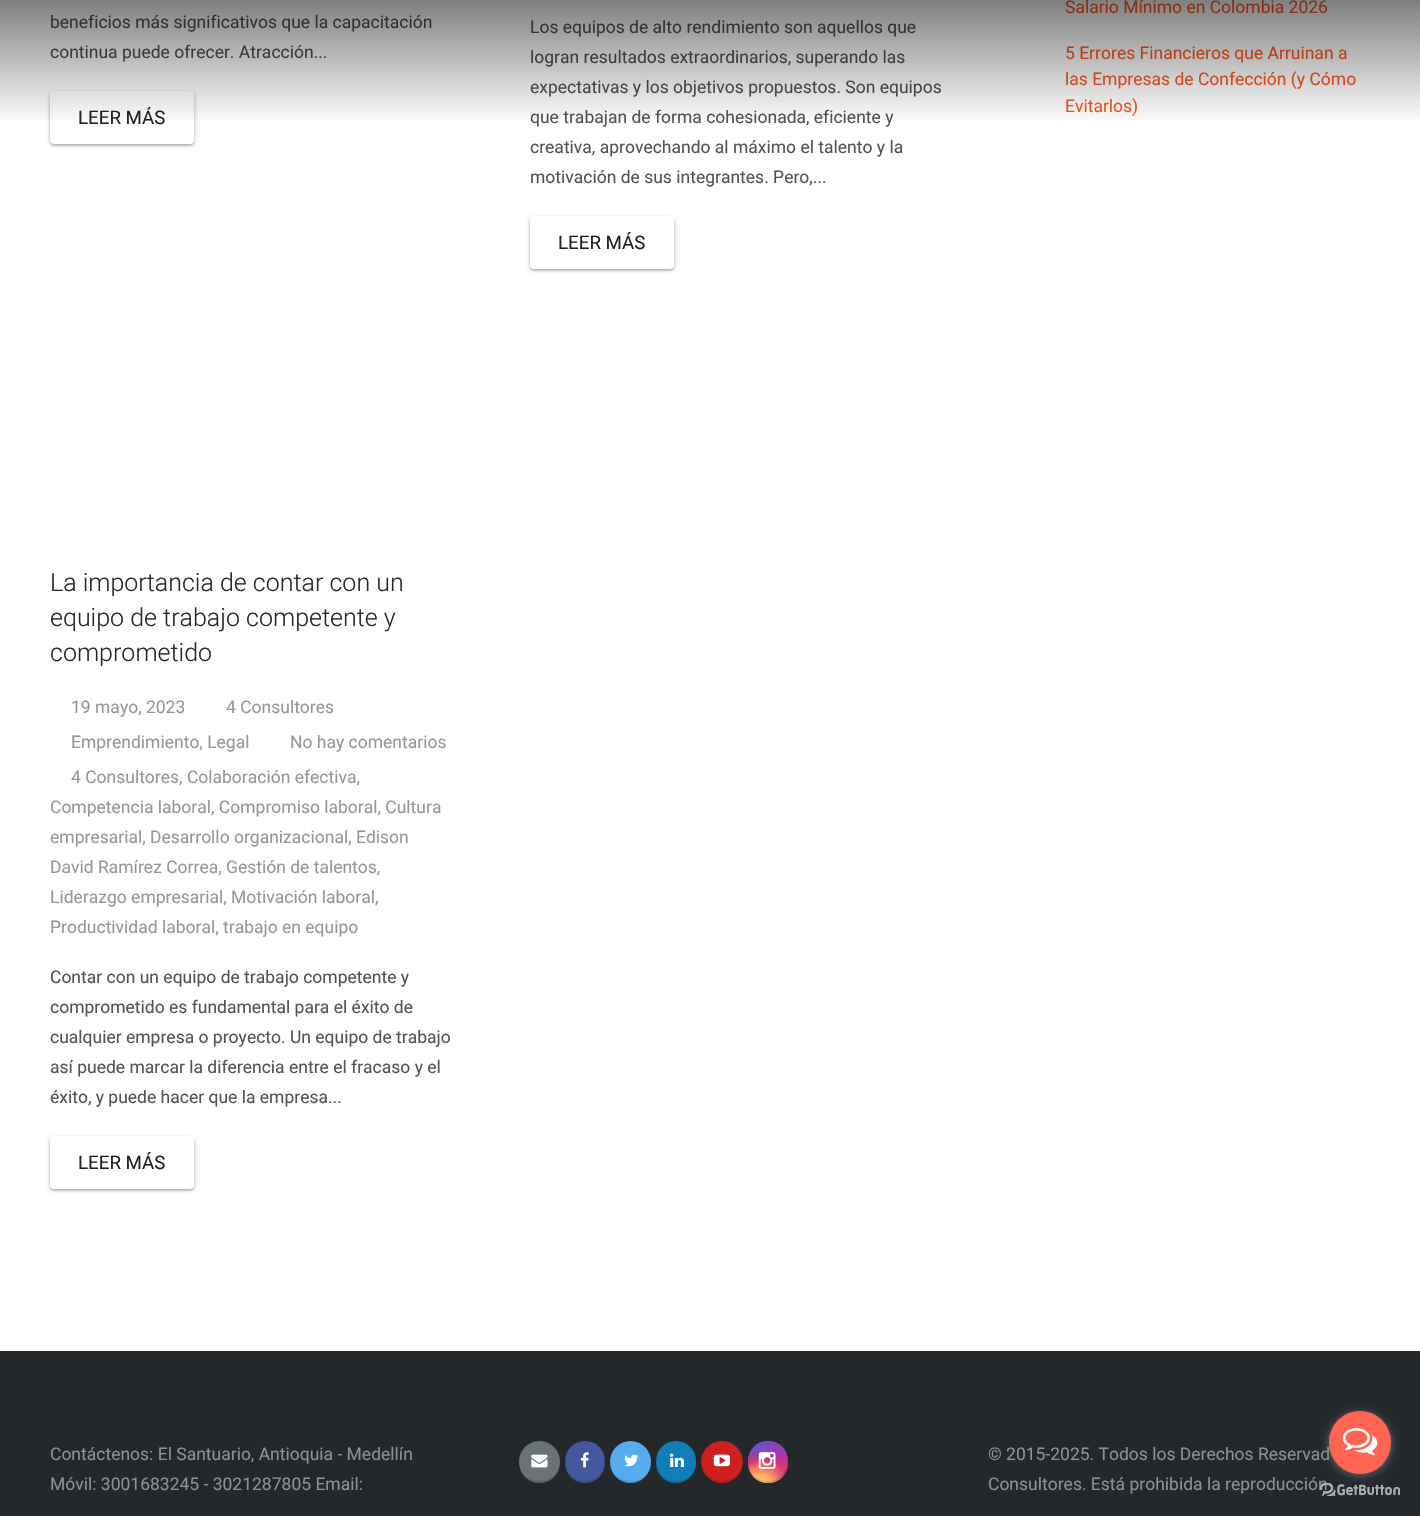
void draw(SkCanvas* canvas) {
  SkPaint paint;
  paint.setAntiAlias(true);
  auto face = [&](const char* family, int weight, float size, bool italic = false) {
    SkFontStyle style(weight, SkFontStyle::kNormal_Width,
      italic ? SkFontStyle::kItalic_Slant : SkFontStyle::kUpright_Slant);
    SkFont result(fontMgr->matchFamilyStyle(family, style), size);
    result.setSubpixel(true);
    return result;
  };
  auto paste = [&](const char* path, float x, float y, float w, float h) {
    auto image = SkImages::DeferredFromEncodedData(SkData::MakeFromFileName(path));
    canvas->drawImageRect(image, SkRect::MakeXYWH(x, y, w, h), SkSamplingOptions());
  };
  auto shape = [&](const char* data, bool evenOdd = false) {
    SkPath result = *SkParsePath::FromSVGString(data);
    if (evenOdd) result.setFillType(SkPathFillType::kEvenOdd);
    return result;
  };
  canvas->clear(0xffffffff);
  paint.setColor(0x4d000000);
  paint.setMaskFilter(SkMaskFilter::MakeBlur(kNormal_SkBlurStyle, 2));
  canvas->drawRoundRect(SkRect::MakeXYWH(50, 93, 144, 52), 4, 4, paint);
  paint.setMaskFilter(nullptr);
  paint.setColor(0x1a000000);
  paint.setMaskFilter(SkMaskFilter::MakeBlur(kNormal_SkBlurStyle, 0.5f));
  canvas->drawRoundRect(SkRect::MakeXYWH(50, 94, 144, 52), 4, 4, paint);
  paint.setMaskFilter(nullptr);
  paint.setColor(0xffffffff);
  canvas->drawRoundRect(SkRect::MakeXYWH(50, 91, 144, 53), 4, 4, paint);
  paint.setColor(0x4d000000);
  paint.setMaskFilter(SkMaskFilter::MakeBlur(kNormal_SkBlurStyle, 2));
  canvas->drawRoundRect(SkRect::MakeXYWH(530, 218, 144, 52), 4, 4, paint);
  paint.setMaskFilter(nullptr);
  paint.setColor(0x1a000000);
  paint.setMaskFilter(SkMaskFilter::MakeBlur(kNormal_SkBlurStyle, 0.5f));
  canvas->drawRoundRect(SkRect::MakeXYWH(530, 219, 144, 52), 4, 4, paint);
  paint.setMaskFilter(nullptr);
  paint.setColor(0xffffffff);
  canvas->drawRoundRect(SkRect::MakeXYWH(530, 216, 144, 53), 4, 4, paint);
  paint.setColor(0x4d000000);
  paint.setMaskFilter(SkMaskFilter::MakeBlur(kNormal_SkBlurStyle, 2));
  canvas->drawRoundRect(SkRect::MakeXYWH(50, 1138, 144, 52), 4, 4, paint);
  paint.setMaskFilter(nullptr);
  paint.setColor(0x1a000000);
  paint.setMaskFilter(SkMaskFilter::MakeBlur(kNormal_SkBlurStyle, 0.5f));
  canvas->drawRoundRect(SkRect::MakeXYWH(50, 1139, 144, 52), 4, 4, paint);
  paint.setMaskFilter(nullptr);
  paint.setColor(0xffffffff);
  canvas->drawRoundRect(SkRect::MakeXYWH(50, 1136, 144, 53), 4, 4, paint);
  paint.setColor(0xff25282b);
  canvas->drawRect(SkRect::MakeXYWH(0, 1351, 1420, 165), paint);
  paint.setColor(0xff697277);
  canvas->drawRoundRect(SkRect::MakeXYWH(519, 1441, 41, 42), 20.5f, 20.5f, paint);
  paint.setColor(0x1f000000);
  canvas->drawPath(shape("M519 1464C520 1470 522 1474 526 1478C544 1494 568 1471 557 1452C563 1464 557 1481 539 1481C527 1481 521 1473 519 1464Z"), paint);
  paste("img/2.png", 531, 1454, 17, 14);
  paint.setColor(0xff42599e);
  canvas->drawRoundRect(SkRect::MakeXYWH(565, 1441, 40, 42), 20, 20, paint);
  paint.setColor(0x1f000000);
  canvas->drawPath(shape("M567 1453C565 1456 565 1459 565 1463C566 1485 595 1491 603 1471C606 1465 606 1458 603 1453C607 1465 601 1481 585 1481C569 1481 563 1465 567 1453Z"), paint);
  paste("img/3.png", 580, 1452, 9, 16);
  paint.setColor(0xff55acee);
  canvas->drawRoundRect(SkRect::MakeXYWH(610, 1441, 41, 42), 20.5f, 20.5f, paint);
  paint.setColor(0x1f000000);
  canvas->drawPath(shape("M651 1464C649 1473 643 1481 631 1481C613 1481 607 1464 613 1452C602 1471 626 1494 644 1478C648 1474 650 1470 651 1464Z"), paint);
  paste("img/4.png", 624, 1454, 15, 13);
  paint.setColor(0xff117eb9);
  canvas->drawRoundRect(SkRect::MakeXYWH(656, 1441, 40, 42), 20, 20, paint);
  paint.setColor(0x1f000000);
  canvas->drawPath(shape("M696 1464C695 1473 688 1481 676 1481C660 1481 654 1465 658 1453C656 1456 656 1459 656 1463C658 1490 695 1489 696 1464Z"), paint);
  paste("img/5.png", 670, 1453, 14, 14);
  paint.setColor(0xffcd201f);
  canvas->drawCircle(722, 1462, 21, paint);
  paint.setColor(0x1f000000);
  canvas->drawPath(shape("M703 1453C691 1478 730 1496 741 1470C744 1465 744 1458 741 1453C745 1465 739 1481 722 1481C705 1481 699 1465 703 1453Z"), paint);
  paste("img/6.png", 713, 1454, 17, 13);
  {
    const SkColor colors[] = {0xff6559ca, 0xffbc318f, 0xffe42e66, 0xfffa5332, 0xffffdc80};
    const float stops[] = {0, 0.3f, 0.5f, 0.7f, 1};
    const SkPoint ends[] = {{768, 1441}, {768, 1483}};
    paint.setShader(SkGradientShader::MakeLinear(ends, colors, stops, 5, SkTileMode::kClamp));
    paint.setAlpha(255);
  }
  canvas->drawRoundRect(SkRect::MakeXYWH(748, 1441, 40, 42), 20, 20, paint);
  {
    const SkColor colors[] = {0xffd9317a, 0x00d9317a};
    const float stops[] = {0, 1};
    SkMatrix m = SkMatrix::Translate(788, 1483).preScale(57, 58);
    paint.setShader(SkGradientShader::MakeRadial({0, 0}, 1, colors, stops, 2, SkTileMode::kClamp, 0, &m));
    paint.setAlpha(255);
  }
  canvas->drawRoundRect(SkRect::MakeXYWH(748, 1441, 40, 42), 20, 20, paint);
  {
    const SkColor colors[] = {0xff893dc2, 0x00893dc2};
    const float stops[] = {0, 0.5f};
    SkMatrix m = SkMatrix::Translate(772, 1433).preScale(34, 70);
    paint.setShader(SkGradientShader::MakeRadial({0, 0}, 1, colors, stops, 2, SkTileMode::kClamp, 0, &m));
    paint.setAlpha(255);
  }
  canvas->drawRoundRect(SkRect::MakeXYWH(748, 1441, 40, 42), 20, 20, paint);
  {
    const SkColor colors[] = {0xff893dc2, 0x00893dc2};
    const float stops[] = {0, 0.5f};
    SkMatrix m = SkMatrix::Translate(788, 1441).preScale(57, 58);
    paint.setShader(SkGradientShader::MakeRadial({0, 0}, 1, colors, stops, 2, SkTileMode::kClamp, 0, &m));
    paint.setAlpha(255);
  }
  canvas->drawRoundRect(SkRect::MakeXYWH(748, 1441, 40, 42), 20, 20, paint);
  {
    const SkColor colors[] = {0xff5258cf, 0x005258cf};
    const float stops[] = {0, 0.5f};
    SkMatrix m = SkMatrix::Translate(756, 1421).preScale(45, 88);
    paint.setShader(SkGradientShader::MakeRadial({0, 0}, 1, colors, stops, 2, SkTileMode::kClamp, 0, &m));
    paint.setAlpha(255);
  }
  canvas->drawRoundRect(SkRect::MakeXYWH(748, 1441, 40, 42), 20, 20, paint);
  {
    const SkColor colors[] = {0xff5258cf, 0x005258cf};
    const float stops[] = {0, 0.5f};
    SkMatrix m = SkMatrix::Translate(748, 1431).preScale(57, 73);
    paint.setShader(SkGradientShader::MakeRadial({0, 0}, 1, colors, stops, 2, SkTileMode::kClamp, 0, &m));
    paint.setAlpha(255);
  }
  canvas->drawRoundRect(SkRect::MakeXYWH(748, 1441, 40, 42), 20, 20, paint);
  {
    const SkColor colors[] = {0xfffeda7e, 0x00feda7e};
    const float stops[] = {0, 0.5f};
    paint.setShader(SkGradientShader::MakeRadial({752, 1499}, 68, colors, stops, 2, SkTileMode::kClamp));
    paint.setAlpha(255);
  }
  canvas->drawRoundRect(SkRect::MakeXYWH(748, 1441, 40, 42), 20, 20, paint);
  {
    const SkColor colors[] = {0xfffec564, 0x00fec564};
    const float stops[] = {0, 0.5f};
    paint.setShader(SkGradientShader::MakeRadial({762, 1483}, 49, colors, stops, 2, SkTileMode::kClamp));
    paint.setAlpha(255);
  }
  canvas->drawRoundRect(SkRect::MakeXYWH(748, 1441, 40, 42), 20, 20, paint);
  paint.setShader(nullptr);
  paint.setColor(0x1f000000);
  canvas->drawPath(shape("M748 1464C749 1489 786 1490 788 1463C788 1459 788 1456 786 1453C790 1465 784 1481 768 1481C756 1481 749 1473 748 1464Z"), paint);
  paste("img/7.png", 758, 1452, 18, 17);
  auto f0 = face("Roboto", 400, 17.5f);
  paint.setColor(0xff4f5459);
  canvas->drawString("beneficios más significativos que la capacitación", 50, 28, f0, paint);
  canvas->drawString("continua puede ofrecer. Atracción...", 50, 58, f0, paint);
  auto f1 = face("Roboto", 400, 18.75f);
  paint.setColor(0xff222222);
  canvas->drawString("LEER MÁS", 78, 124, f1, paint);
  paint.setColor(0xff4f5459);
  {
    const struct { const char* s; float x, y; } items[] = {
      {"Los equipos de alto rendimiento son aquellos que", 530, 33},
      {"logran resultados extraordinarios, superando las", 530, 63},
      {"expectativas y los objetivos propuestos. Son equipos", 530, 93},
      {"que trabajan de forma cohesionada, eficiente y", 530, 123},
      {"creativa, aprovechando al máximo el talento y la", 530, 153},
      {"motivación de sus integrantes. Pero,...", 530, 183},
    };
    for (auto [s, x, y] : items) {
      canvas->drawString(s, x, y, f0, paint);
    }
  }
  paint.setColor(0xff222222);
  canvas->drawString("LEER MÁS", 558, 249, f1, paint);
  auto f2 = face("Roboto", 300, 25);
  paint.setColor(0xff25282b);
  {
    const struct { const char* s; float x, y; } items[] = {
      {"La importancia de contar con un", 50, 591},
      {"equipo de trabajo competente y", 50, 626},
      {"comprometido", 50, 661},
    };
    for (auto [s, x, y] : items) {
      canvas->drawString(s, x, y, f2, paint);
    }
  }
  paint.setColor(0xff949799);
  {
    const struct { const char* s; float x, y; } items[] = {
      {"19 mayo, 2023", 71, 713},
      {"4 Consultores", 226, 713},
      {"Emprendimiento, Legal", 71, 748},
      {"No hay comentarios", 290, 748},
      {"4 Consultores, Colaboración efectiva,", 71, 783},
      {"Competencia laboral, Compromiso laboral, Cultura", 50, 813},
      {"empresarial, Desarrollo organizacional, Edison", 50, 843},
      {"David Ramírez Correa, Gestión de talentos,", 50, 873},
      {"Liderazgo empresarial, Motivación laboral,", 50, 903},
      {"Productividad laboral, trabajo en equipo", 50, 933},
    };
    for (auto [s, x, y] : items) {
      canvas->drawString(s, x, y, f0, paint);
    }
  }
  paint.setColor(0xff4f5459);
  {
    const struct { const char* s; float x, y; } items[] = {
      {"Contar con un equipo de trabajo competente y", 50, 983},
      {"comprometido es fundamental para el éxito de", 50, 1013},
      {"cualquier empresa o proyecto. Un equipo de trabajo", 50, 1043},
      {"así puede marcar la diferencia entre el fracaso y el", 50, 1073},
      {"éxito, y puede hacer que la empresa...", 50, 1103},
    };
    for (auto [s, x, y] : items) {
      canvas->drawString(s, x, y, f0, paint);
    }
  }
  paint.setColor(0xff222222);
  canvas->drawString("LEER MÁS", 78, 1169, f1, paint);
  paint.setColor(0xffff5722);
  {
    const struct { const char* s; float x, y; } items[] = {
      {"Salario Mínimo en Colombia 2026", 1065, 13},
      {"5 Errores Financieros que Arruinan a", 1065, 59},
      {"las Empresas de Confección (y Cómo", 1065, 85},
      {"Evitarlos)", 1065, 112},
    };
    for (auto [s, x, y] : items) {
      canvas->drawString(s, x, y, f0, paint);
    }
  }
  {
    const SkColor colors[] = {0x80000000, 0x00000000};
    const float stops[] = {0, 1};
    const SkPoint ends[] = {{710, 0}, {710, 125}};
    paint.setShader(SkGradientShader::MakeLinear(ends, colors, stops, 2, SkTileMode::kClamp));
    paint.setAlpha(255);
  }
  canvas->drawRect(SkRect::MakeXYWH(0, 0, 1420, 120), paint);
  paint.setShader(nullptr);
  paint.setColor(0xff8e9194);
  {
    const struct { const char* s; float x, y; } items[] = {
      {"Contáctenos: El Santuario, Antioquia - Medellín", 50, 1460},
      {"Móvil: 3001683245 - 3021287805 Email:", 50, 1490},
      {"© 2015-2025. Todos los Derechos Reservad", 988, 1460},
      {"Consultores. Está prohibida la reproducción", 988, 1490},
    };
    for (auto [s, x, y] : items) {
      canvas->drawString(s, x, y, f0, paint);
    }
  }
  paste("img/1.png", 1320, 1483, 80, 13);
  paint.setColor(0x66888888);
  paint.setMaskFilter(SkMaskFilter::MakeBlur(kNormal_SkBlurStyle, 4.5f));
  canvas->drawRoundRect(SkRect::MakeXYWH(1329, 1413, 62, 62), 31, 31, paint);
  paint.setMaskFilter(nullptr);
  paste("img/9.png", 1320, 1483, 80, 13);
  paint.setMaskFilter(SkMaskFilter::MakeBlur(kNormal_SkBlurStyle, 4.5f));
  canvas->drawRoundRect(SkRect::MakeXYWH(1329, 1413, 62, 62), 31, 31, paint);
  paint.setMaskFilter(nullptr);
  paint.setColor(0xffff6550);
  canvas->drawRoundRect(SkRect::MakeXYWH(1329, 1411, 62, 63), 31, 31, paint);
  paste("img/8.png", 1342, 1428, 36, 28);
}
